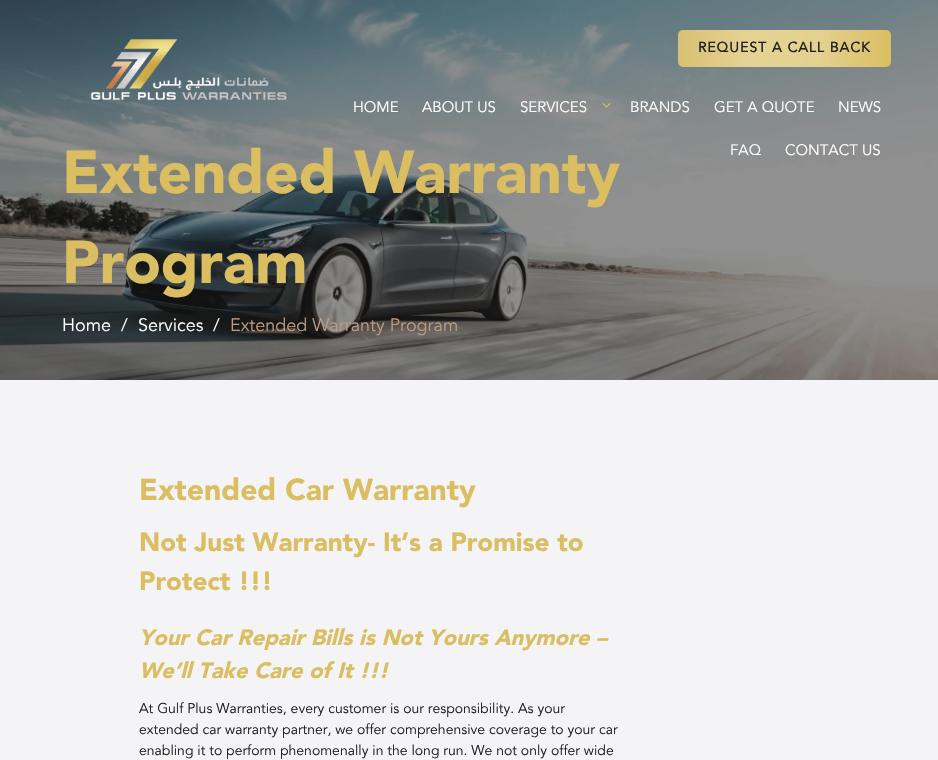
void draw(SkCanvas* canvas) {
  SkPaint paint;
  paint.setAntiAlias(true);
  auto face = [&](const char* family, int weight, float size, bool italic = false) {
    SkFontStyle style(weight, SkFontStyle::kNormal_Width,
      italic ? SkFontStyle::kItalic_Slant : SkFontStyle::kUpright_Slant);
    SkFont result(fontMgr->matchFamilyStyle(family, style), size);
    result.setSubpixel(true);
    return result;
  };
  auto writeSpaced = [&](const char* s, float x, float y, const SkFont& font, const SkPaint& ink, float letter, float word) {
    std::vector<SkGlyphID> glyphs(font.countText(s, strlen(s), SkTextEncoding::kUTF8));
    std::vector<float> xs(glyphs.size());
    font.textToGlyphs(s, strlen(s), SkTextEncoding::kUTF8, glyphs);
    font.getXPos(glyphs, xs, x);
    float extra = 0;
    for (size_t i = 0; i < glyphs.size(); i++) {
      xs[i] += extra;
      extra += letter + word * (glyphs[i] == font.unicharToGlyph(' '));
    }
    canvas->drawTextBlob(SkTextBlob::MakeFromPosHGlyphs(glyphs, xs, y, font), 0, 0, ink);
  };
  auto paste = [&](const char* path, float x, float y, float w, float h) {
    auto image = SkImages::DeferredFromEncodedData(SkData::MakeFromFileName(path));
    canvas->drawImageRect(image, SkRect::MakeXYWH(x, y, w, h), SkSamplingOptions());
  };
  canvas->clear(0xfff4f4f6);
  paste("img/3.png", 0, 0, 938, 380);
  paste("img/1.png", 91, 39, 196, 61);
  {
    const SkColor colors[] = {0xffdabe61, 0xffe4d08f, 0xffe6d294, 0xffd8c073};
    const float stops[] = {0, 0.33f, 0.67f, 1};
    const SkPoint ends[] = {{891, 49}, {678, 48}};
    paint.setShader(SkGradientShader::MakeLinear(ends, colors, stops, 4, SkTileMode::kClamp));
    paint.setAlpha(255);
  }
  canvas->drawRoundRect(SkRect::MakeXYWH(678, 30, 213, 37), 5, 5, paint);
  paste("img/2.png", 602, 103, 9, 5);
  auto f0 = face("Avenir", 700, 14);
  paint.setShader(nullptr);
  paint.setColor(0xff222222);
  writeSpaced("REQUEST A CALL BACK", 698, 52, f0, paint, 1, 0);
  auto f1 = face("Avenir", 400, 15);
  paint.setColor(0xffffffff);
  {
    const struct { const char* s; float x, y; } items[] = {
      {"HOME", 353, 112},
      {"ABOUT US", 422, 112},
      {"SERVICES", 520, 112},
      {"BRANDS", 630, 112},
      {"GET A QUOTE", 714, 112},
      {"NEWS", 838, 112},
      {"FAQ", 730, 155},
      {"CONTACT US", 785, 155},
    };
    for (auto [s, x, y] : items) {
      canvas->drawString(s, x, y, f1, paint);
    }
  }
  auto f2 = face("Avenir", 900, 60);
  paint.setColor(0xffdabe61);
  canvas->drawString("Extended Warranty", 62, 193, f2, paint);
  canvas->drawString("Program", 62, 283, f2, paint);
  auto f3 = face("Avenir", 400, 18);
  paint.setColor(0xffffffff);
  {
    const struct { const char* s; float x, y; } items[] = {
      {"Home", 62, 331},
      {"/", 121, 331},
      {"Services", 138, 331},
      {"/", 213, 331},
    };
    for (auto [s, x, y] : items) {
      canvas->drawString(s, x, y, f3, paint);
    }
  }
  paint.setColor(0xffbf9a80);
  canvas->drawString("Extended Warranty Program", 230, 331, f3, paint);
  auto f4 = face("Avenir", 900, 30);
  paint.setColor(0xffdabe61);
  canvas->drawString("Extended Car Warranty", 139, 500, f4, paint);
  auto f5 = face("Avenir", 900, 26);
  canvas->drawString("Not Just Warranty- It’s a Promise to", 139, 551, f5, paint);
  canvas->drawString("Protect !!!", 139, 590, f5, paint);
  auto f6 = face("Avenir", 900, 22, true);
  canvas->drawString("Your Car Repair Bills is Not Yours Anymore –", 139, 645, f6, paint);
  canvas->drawString("We’ll Take Care of It !!!", 139, 678, f6, paint);
  auto f7 = face("Avenir", 400, 14);
  paint.setColor(0xff222222);
  {
    const struct { const char* s; float x, y; } items[] = {
      {"At Gulf Plus Warranties, every customer is our responsibility. As your", 139, 713},
      {"extended car warranty partner, we offer comprehensive coverage to your car", 139, 734},
      {"enabling it to perform phenomenally in the long run. We not only offer wide", 139, 755},
    };
    for (auto [s, x, y] : items) {
      canvas->drawString(s, x, y, f7, paint);
    }
  }
}
